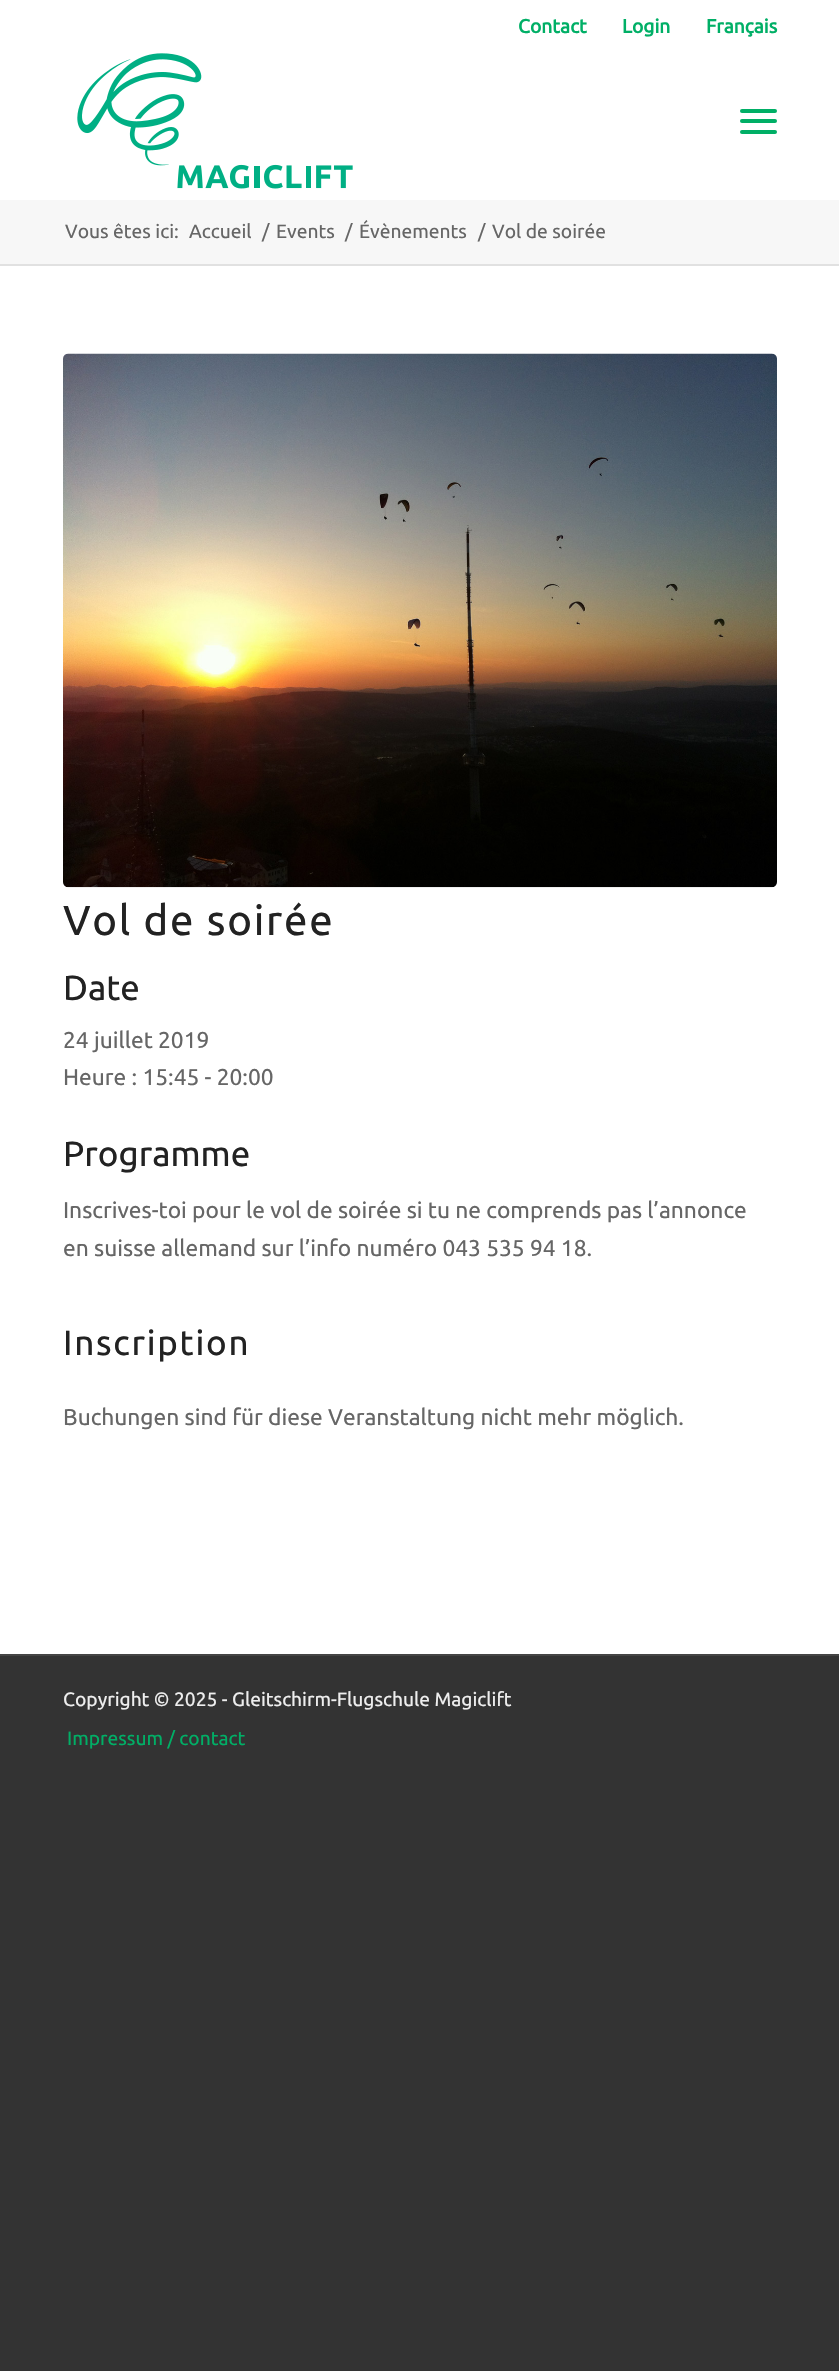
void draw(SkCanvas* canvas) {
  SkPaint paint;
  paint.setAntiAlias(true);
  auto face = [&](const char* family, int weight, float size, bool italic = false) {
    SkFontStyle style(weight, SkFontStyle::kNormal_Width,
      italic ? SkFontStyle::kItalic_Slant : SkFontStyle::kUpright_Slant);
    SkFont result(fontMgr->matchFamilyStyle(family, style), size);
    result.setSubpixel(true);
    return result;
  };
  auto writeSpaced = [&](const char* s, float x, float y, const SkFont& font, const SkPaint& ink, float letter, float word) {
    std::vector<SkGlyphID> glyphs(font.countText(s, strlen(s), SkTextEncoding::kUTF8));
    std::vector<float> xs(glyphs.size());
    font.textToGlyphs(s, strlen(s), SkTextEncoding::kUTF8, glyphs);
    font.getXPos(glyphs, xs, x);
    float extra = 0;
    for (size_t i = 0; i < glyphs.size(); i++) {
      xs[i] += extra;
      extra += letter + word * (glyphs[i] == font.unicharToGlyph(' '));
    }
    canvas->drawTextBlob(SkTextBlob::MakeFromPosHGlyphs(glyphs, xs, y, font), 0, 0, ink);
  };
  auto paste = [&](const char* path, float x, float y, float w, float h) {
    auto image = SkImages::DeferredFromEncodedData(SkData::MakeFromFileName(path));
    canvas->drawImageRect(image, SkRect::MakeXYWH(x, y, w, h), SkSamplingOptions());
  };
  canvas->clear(0xff333333);
  paint.setColor(0xffffffff);
  canvas->drawRect(SkRect::MakeXYWH(0, 0, 839, 200), paint);
  paste("img/1.png", 77, 53, 276, 136);
  paint.setColor(0xff00af66);
  canvas->drawRoundRect(SkRect::MakeXYWH(740, 119, 37, 4), 2, 2, paint);
  canvas->drawRoundRect(SkRect::MakeXYWH(740, 109, 37, 4), 2, 2, paint);
  canvas->drawRoundRect(SkRect::MakeXYWH(740, 130, 37, 4), 2, 2, paint);
  {
    const struct { float x, y, w, h; SkColor color; } items[] = {
      {0, 200, 839, 64, 0xfff7f7f7},
      {0, 266, 839, 1388, 0xffffffff},
      {0, 264, 839, 2, 0xffe1e1e1},
    };
    for (auto [x, y, w, h, color] : items) {
      paint.setColor(color);
      canvas->drawRect(SkRect::MakeXYWH(x, y, w, h), paint);
    }
  }
  paste("img/2.png", 63, 353, 714, 535);
  paint.setColor(0xff444444);
  canvas->drawRect(SkRect::MakeXYWH(0, 1654, 839, 2), paint);
  auto f0 = face("Ubuntu", 700, 19.25f);
  paint.setColor(0xff00af66);
  {
    const struct { const char* s; float x, y; } items[] = {
      {"Contact", 518, 33},
      {"Login", 622, 33},
      {"Français", 706, 33},
    };
    for (auto [s, x, y] : items) {
      canvas->drawString(s, x, y, f0, paint);
    }
  }
  auto f1 = face("Ubuntu", 400, 19.25f);
  paint.setColor(0xff666666);
  {
    const struct { const char* s; float x, y; } items[] = {
      {"Vous êtes ici:", 65, 238},
      {"Accueil", 189, 238},
      {"/", 262, 238},
      {"Events", 276, 238},
      {"/", 345, 238},
      {"Évènements", 359, 238},
      {"/", 478, 238},
      {"Vol de soirée", 492, 238},
    };
    for (auto [s, x, y] : items) {
      canvas->drawString(s, x, y, f1, paint);
    }
  }
  auto f2 = face("Ubuntu", 400, 42);
  paint.setColor(0xff222222);
  writeSpaced("Vol de soirée", 63, 935, f2, paint, 1.75f, 0);
  auto f3 = face("Ubuntu", 400, 35);
  canvas->drawString("Date", 63, 1000, f3, paint);
  auto f4 = face("Ubuntu", 400, 22.75f);
  paint.setColor(0xff666666);
  canvas->drawString("24 juillet 2019", 63, 1048, f4, paint);
  canvas->drawString("Heure : 15:45 - 20:00", 63, 1085, f4, paint);
  paint.setColor(0xff222222);
  canvas->drawString("Programme", 63, 1166, f3, paint);
  paint.setColor(0xff666666);
  canvas->drawString("Inscrives-toi pour le vol de soirée si tu ne comprends pas l’annonce", 63, 1218, f4, paint);
  canvas->drawString("en suisse allemand sur l’info numéro 043 535 94 18.", 63, 1256, f4, paint);
  paint.setColor(0xff222222);
  writeSpaced("Inscription", 63, 1355, f3, paint, 1.75f, 0);
  paint.setColor(0xff666666);
  canvas->drawString("Buchungen sind für diese Veranstaltung nicht mehr möglich.", 63, 1425, f4, paint);
  paint.setColor(0xffeeeeee);
  canvas->drawString("Copyright © 2025 - Gleitschirm-Flugschule Magiclift", 63, 1706, f1, paint);
  paint.setColor(0xff00af66);
  canvas->drawString("Impressum / contact", 67, 1745, f1, paint);
}
